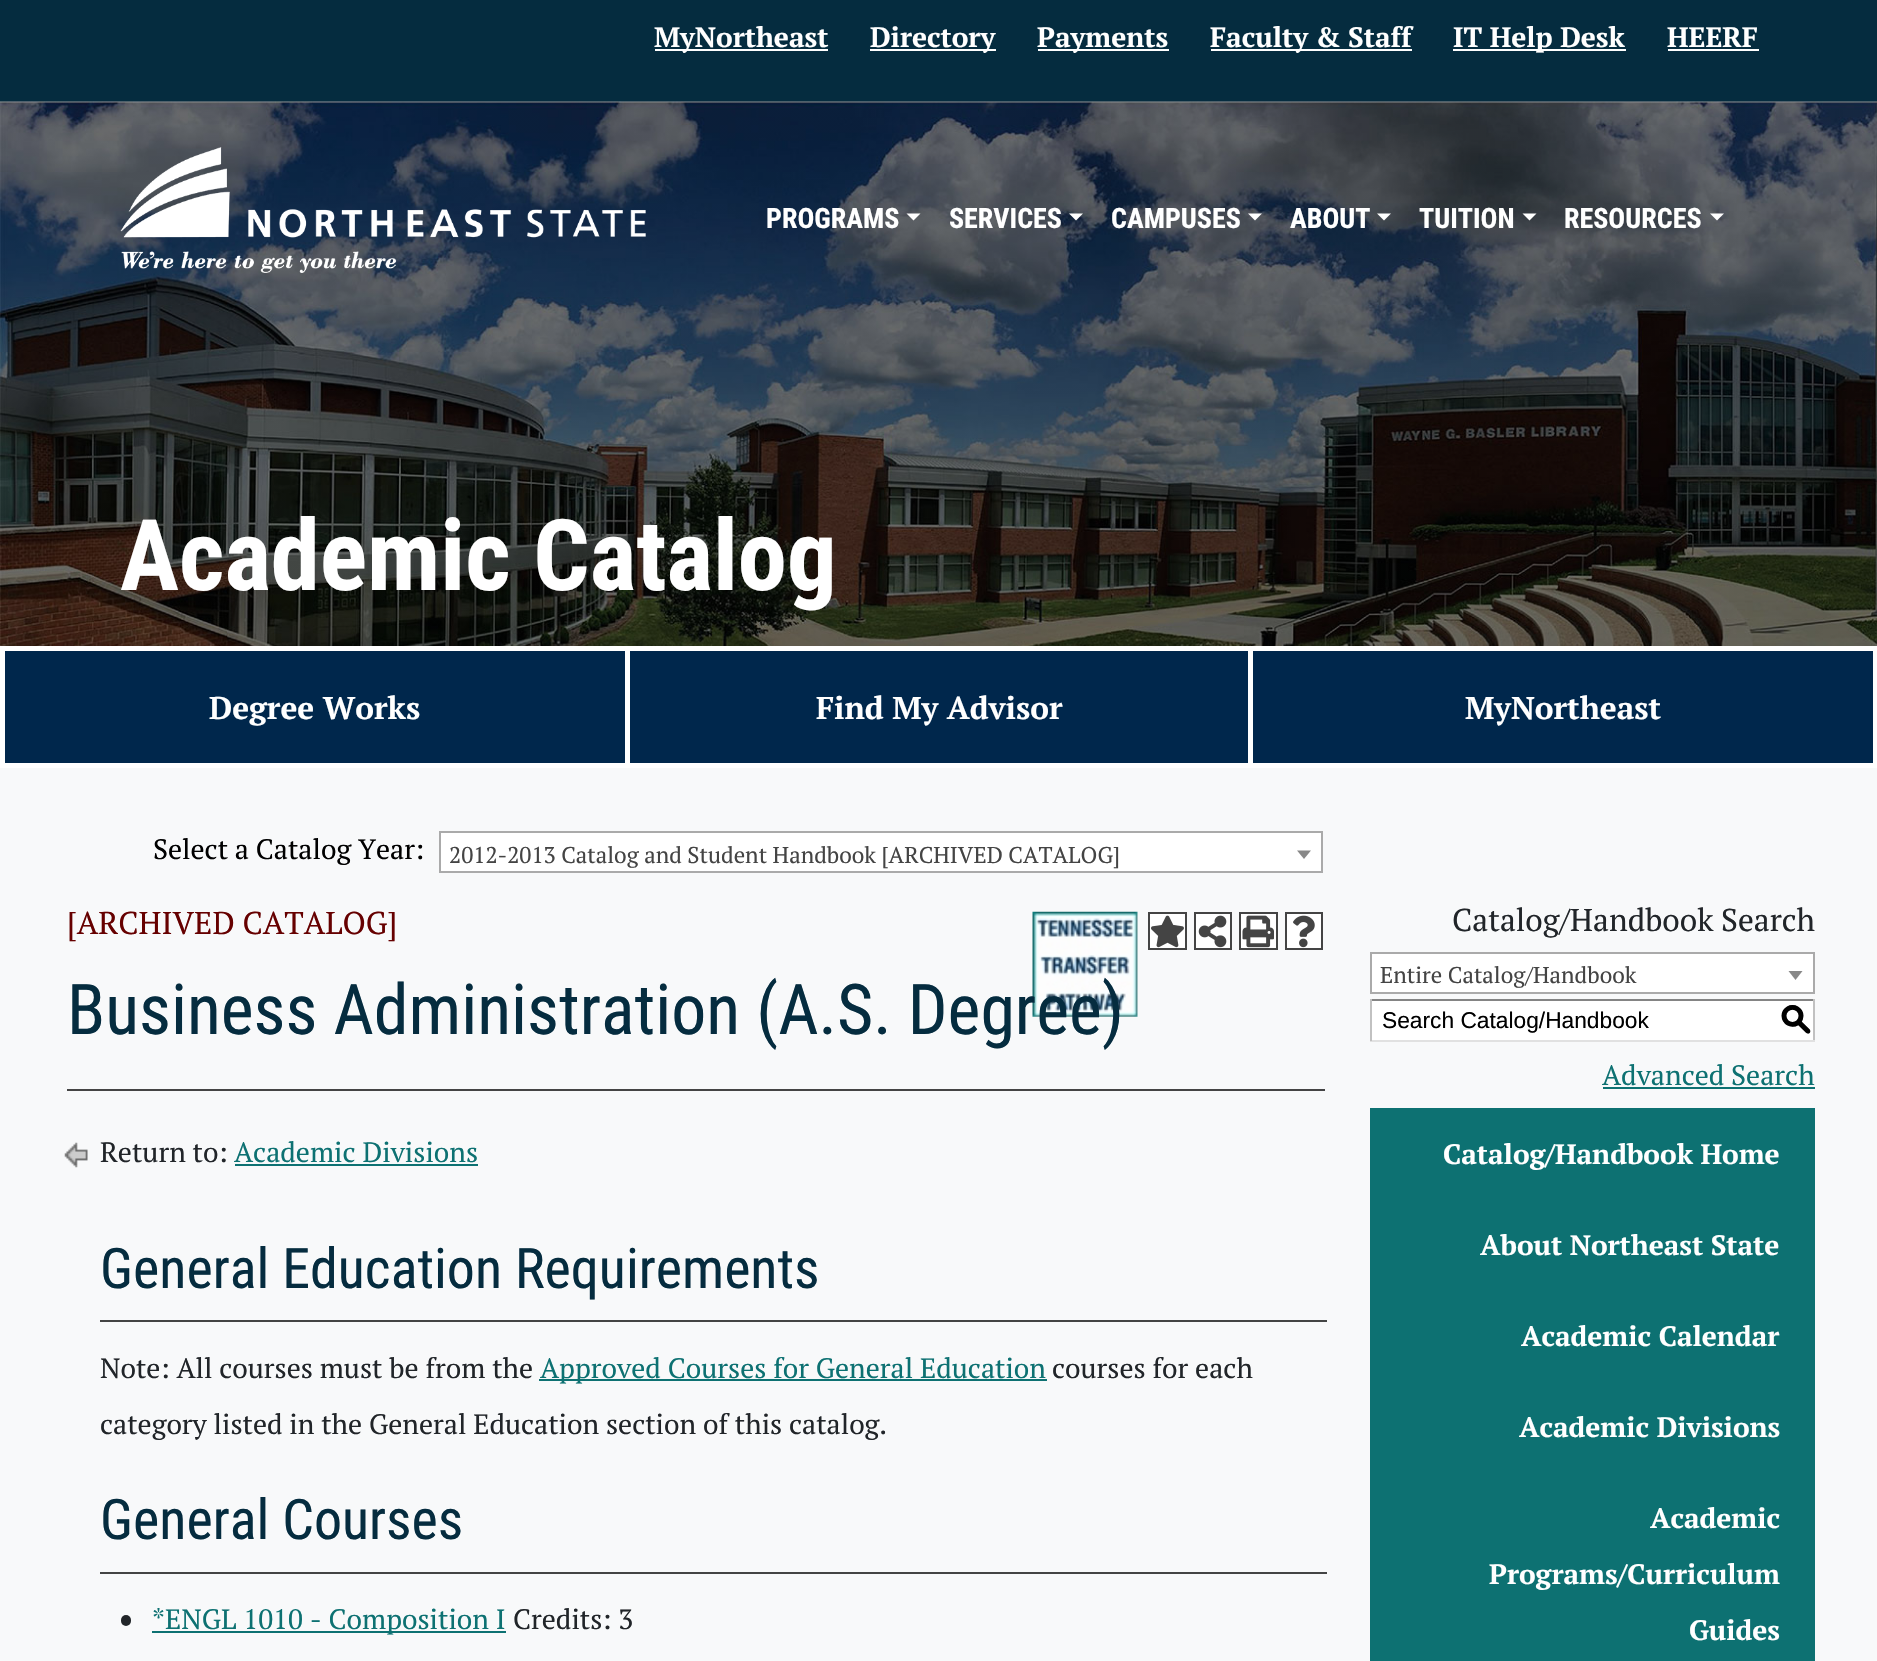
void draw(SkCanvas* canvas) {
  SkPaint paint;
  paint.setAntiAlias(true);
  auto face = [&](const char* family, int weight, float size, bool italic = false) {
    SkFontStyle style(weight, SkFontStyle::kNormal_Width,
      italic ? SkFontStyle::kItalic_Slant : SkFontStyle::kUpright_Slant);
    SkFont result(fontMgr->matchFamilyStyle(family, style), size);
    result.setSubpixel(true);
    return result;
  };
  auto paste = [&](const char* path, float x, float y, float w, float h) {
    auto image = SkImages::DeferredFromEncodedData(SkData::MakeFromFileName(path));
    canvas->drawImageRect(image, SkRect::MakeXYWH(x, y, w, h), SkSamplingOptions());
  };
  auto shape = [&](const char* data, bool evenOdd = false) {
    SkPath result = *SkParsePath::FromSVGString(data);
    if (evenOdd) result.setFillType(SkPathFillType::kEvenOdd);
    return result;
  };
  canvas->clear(0xff052c3f);
  {
    const struct { float x, y, w, h; SkColor color; } items[] = {
      {655, 49, 173, 2, 0xffffffff},
      {870, 49, 126, 2, 0xffffffff},
      {1038, 49, 131, 2, 0xffffffff},
      {1211, 49, 201, 2, 0xffffffff},
      {1453, 49, 173, 2, 0xffffffff},
      {1668, 49, 91, 2, 0xffffffff},
    };
    for (auto [x, y, w, h, color] : items) {
      paint.setColor(color);
      canvas->drawRect(SkRect::MakeXYWH(x, y, w, h), paint);
    }
  }
  paste("img/1.png", 0, 101, 1877, 545);
  paste("img/2.png", 120, 147, 526, 126);
  canvas->drawPath(shape("M906.5 213.5H920.5L913.5 220.5Z"), paint);
  canvas->drawPath(shape("M1069 213.5H1083L1076 220.5Z"), paint);
  canvas->drawPath(shape("M1248 213.5H1262L1255 220.5Z"), paint);
  canvas->drawPath(shape("M1377 213.5H1391L1384 220.5Z"), paint);
  canvas->drawPath(shape("M1522.5 213.5H1536.5L1529.5 220.5Z"), paint);
  canvas->drawPath(shape("M1710 213.5H1724L1717 220.5Z"), paint);
  {
    const struct { float x, y, w, h; SkColor color; } items[] = {
      {0, 646, 1877, 5, 0xffffffff},
      {0, 763, 1877, 5, 0xffffffff},
      {0, 646, 5, 122, 0xffffffff},
      {5, 651, 620, 112, 0xff00274c},
      {625, 651, 5, 112, 0xffffffff},
      {630, 651, 618, 112, 0xff00274c},
      {1248, 651, 5, 112, 0xffffffff},
      {1253, 651, 620, 112, 0xff00274c},
      {1873, 651, 4, 112, 0xffffffff},
      {0, 768, 1877, 893, 0xfff8f9fa},
    };
    for (auto [x, y, w, h, color] : items) {
      paint.setColor(color);
      canvas->drawRect(SkRect::MakeXYWH(x, y, w, h), paint);
    }
  }
  paint.setColor(0xffffffff);
  canvas->drawRect(SkRect::MakeXYWH(440, 832, 882, 40), paint);
  paint.setStroke(true);
  paint.setStrokeWidth(2);
  paint.setColor(0xffaaaaaa);
  canvas->drawRect(SkRect::MakeXYWH(440, 832, 882, 40), paint);
  paint.setStroke(false);
  paint.setColor(0xff888888);
  canvas->drawPath(shape("M1297 850.5H1311L1304 859Z"), paint);
  paste("img/3.png", 1032, 911, 106, 106);
  paint.setColor(0xffffffff);
  canvas->drawRect(SkRect::MakeXYWH(1149, 913, 37, 36), paint);
  paint.setStroke(true);
  paint.setColor(0xff444444);
  canvas->drawRect(SkRect::MakeXYWH(1149, 913, 37, 36), paint);
  paste("img/4.png", 1151, 915, 33, 33);
  paint.setStroke(false);
  paint.setColor(0xffffffff);
  canvas->drawRect(SkRect::MakeXYWH(1195, 913, 36, 36), paint);
  paint.setStroke(true);
  paint.setColor(0xff444444);
  canvas->drawRect(SkRect::MakeXYWH(1195, 913, 36, 36), paint);
  paste("img/5.png", 1198, 915, 29, 33);
  paint.setStroke(false);
  paint.setColor(0xffffffff);
  canvas->drawRect(SkRect::MakeXYWH(1240, 913, 37, 36), paint);
  paint.setStroke(true);
  paint.setColor(0xff444444);
  canvas->drawRect(SkRect::MakeXYWH(1240, 913, 37, 36), paint);
  paste("img/6.png", 1242, 915, 32, 33);
  paint.setStroke(false);
  paint.setColor(0xffffffff);
  canvas->drawRect(SkRect::MakeXYWH(1286, 913, 36, 36), paint);
  paint.setStroke(true);
  paint.setColor(0xff444444);
  canvas->drawRect(SkRect::MakeXYWH(1286, 913, 36, 36), paint);
  paste("img/7.png", 1293, 915, 22, 33);
  paint.setStroke(false);
  canvas->drawRect(SkRect::MakeXYWH(67, 1089, 1258, 2), paint);
  paste("img/8.png", 64, 1142, 24, 26);
  {
    const struct { float x, y, w, h; SkColor color; } items[] = {
      {235, 1164, 243, 2, 0xff0d7172},
      {100, 1320, 1227, 2, 0xff444444},
      {539, 1379, 508, 2, 0xff0d7172},
      {100, 1572, 1227, 2, 0xff444444},
    };
    for (auto [x, y, w, h, color] : items) {
      paint.setColor(color);
      canvas->drawRect(SkRect::MakeXYWH(x, y, w, h), paint);
    }
  }
  paint.setColor(0xff212529);
  canvas->drawRoundRect(SkRect::MakeXYWH(121, 1615, 10, 11), 5, 5, paint);
  paint.setColor(0xff0d7172);
  canvas->drawRect(SkRect::MakeXYWH(152, 1631, 354, 2), paint);
  paint.setColor(0xffffffff);
  canvas->drawRect(SkRect::MakeXYWH(1371, 953, 443, 40), paint);
  paint.setStroke(true);
  paint.setColor(0xffaaaaaa);
  canvas->drawRect(SkRect::MakeXYWH(1371, 953, 443, 40), paint);
  paint.setStroke(false);
  paint.setColor(0xff888888);
  canvas->drawPath(shape("M1788.5 971H1802.5L1795.5 980Z"), paint);
  {
    const struct { float x, y, w, h; SkColor color; } items[] = {
      {1372, 1001, 441, 39, 0xffffffff},
      {1370, 999, 445, 2, 0xff848484},
      {1813, 999, 2, 42, 0xffc1c1c1},
      {1370, 1040, 445, 2, 0xffe1e1e1},
      {1370, 999, 2, 42, 0xffc1c1c1},
      {1603, 1087, 212, 2, 0xff0d7172},
      {1370, 1108, 445, 553, 0xff0d7172},
    };
    for (auto [x, y, w, h, color] : items) {
      paint.setColor(color);
      canvas->drawRect(SkRect::MakeXYWH(x, y, w, h), paint);
    }
  }
  auto f0 = face("PT Serif", 700, 28);
  paint.setColor(0xffffffff);
  {
    const struct { const char* s; float x, y; } items[] = {
      {"MyNortheast", 654, 47},
      {"Directory", 870, 47},
      {"Payments", 1037, 47},
      {"Faculty & Staff", 1210, 47},
      {"IT Help Desk", 1453, 47},
      {"HEERF", 1667, 47},
    };
    for (auto [s, x, y] : items) {
      canvas->drawString(s, x, y, f0, paint);
    }
  }
  auto f1 = face("Roboto Condensed", 700, 28);
  {
    const struct { const char* s; float x, y; } items[] = {
      {"PROGRAMS", 766, 228},
      {"SERVICES", 949, 228},
      {"CAMPUSES", 1111, 228},
      {"ABOUT", 1290, 228},
      {"TUITION", 1419, 228},
      {"RESOURCES", 1564, 228},
    };
    for (auto [s, x, y] : items) {
      canvas->drawString(s, x, y, f1, paint);
    }
  }
  auto f2 = face("Roboto Condensed", 700, 98.75f);
  canvas->drawString("Academic Catalog", 120, 590, f2, paint);
  auto f3 = face("PT Serif", 700, 31.5f);
  {
    const struct { const char* s; float x, y; } items[] = {
      {"Degree Works", 209, 719},
      {"Find My Advisor", 816, 719},
      {"MyNortheast", 1465, 719},
    };
    for (auto [s, x, y] : items) {
      canvas->drawString(s, x, y, f3, paint);
    }
  }
  auto f4 = face("PT Serif", 400, 28);
  paint.setColor(0xff000000);
  canvas->drawString("Select a Catalog Year:", 153, 859, f4, paint);
  auto f5 = face("PT Serif", 400, 22.75f);
  paint.setColor(0xff444444);
  canvas->drawString("2012-2013 Catalog and Student Handbook [ARCHIVED CATALOG]", 449, 863, f5, paint);
  auto f6 = face("PT Serif", 400, 31.5f);
  paint.setColor(0xff660000);
  canvas->drawString("[ARCHIVED CATALOG]", 67, 934, f6, paint);
  auto f7 = face("Roboto Condensed", 400, 70);
  paint.setColor(0xff052c3f);
  canvas->drawString("Business Administration (A.S. Degree)", 67, 1034, f7, paint);
  paint.setColor(0xff212529);
  canvas->drawString("Return to:", 100, 1162, f4, paint);
  paint.setColor(0xff0d7172);
  canvas->drawString("Academic Divisions", 234, 1162, f4, paint);
  auto f8 = face("Roboto Condensed", 400, 56);
  paint.setColor(0xff052c3f);
  canvas->drawString("General Education Requirements", 100, 1288, f8, paint);
  paint.setColor(0xff212529);
  canvas->drawString("Note: All courses must be from the", 100, 1378, f4, paint);
  paint.setColor(0xff0d7172);
  canvas->drawString("Approved Courses for General Education", 540, 1378, f4, paint);
  paint.setColor(0xff212529);
  canvas->drawString("courses for each", 1052, 1378, f4, paint);
  canvas->drawString("category listed in the General Education section of this catalog.", 100, 1434, f4, paint);
  paint.setColor(0xff052c3f);
  canvas->drawString("General Courses", 100, 1539, f8, paint);
  paint.setColor(0xff0d7172);
  canvas->drawString("*ENGL 1010 - Composition I", 152, 1629, f4, paint);
  paint.setColor(0xff212529);
  canvas->drawString("Credits: 3", 513, 1629, f4, paint);
  canvas->drawString("Catalog/Handbook Search", 1452, 931, f6, paint);
  paint.setColor(0xff444444);
  canvas->drawString("Entire Catalog/Handbook", 1380, 983, f5, paint);
  auto f9 = face("Liberation Sans", 400, 22.75f);
  paint.setColor(0xff000000);
  canvas->drawString("Search Catalog/Handbook", 1382, 1028, f9, paint);
  auto f10 = face("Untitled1", 500, 31.5f);
  canvas->drawString("S", 1780, 1029, f10, paint);
  paint.setColor(0xff0d7172);
  canvas->drawString("Advanced Search", 1602, 1085, f4, paint);
  paint.setColor(0xffffffff);
  {
    const struct { const char* s; float x, y; } items[] = {
      {"Catalog/Handbook Home", 1443, 1164},
      {"About Northeast State", 1480, 1255},
      {"Academic Calendar", 1521, 1346},
      {"Academic Divisions", 1519, 1437},
      {"Academic", 1650, 1528},
      {"Programs/Curriculum", 1489, 1584},
      {"Guides", 1689, 1640},
    };
    for (auto [s, x, y] : items) {
      canvas->drawString(s, x, y, f0, paint);
    }
  }
}
